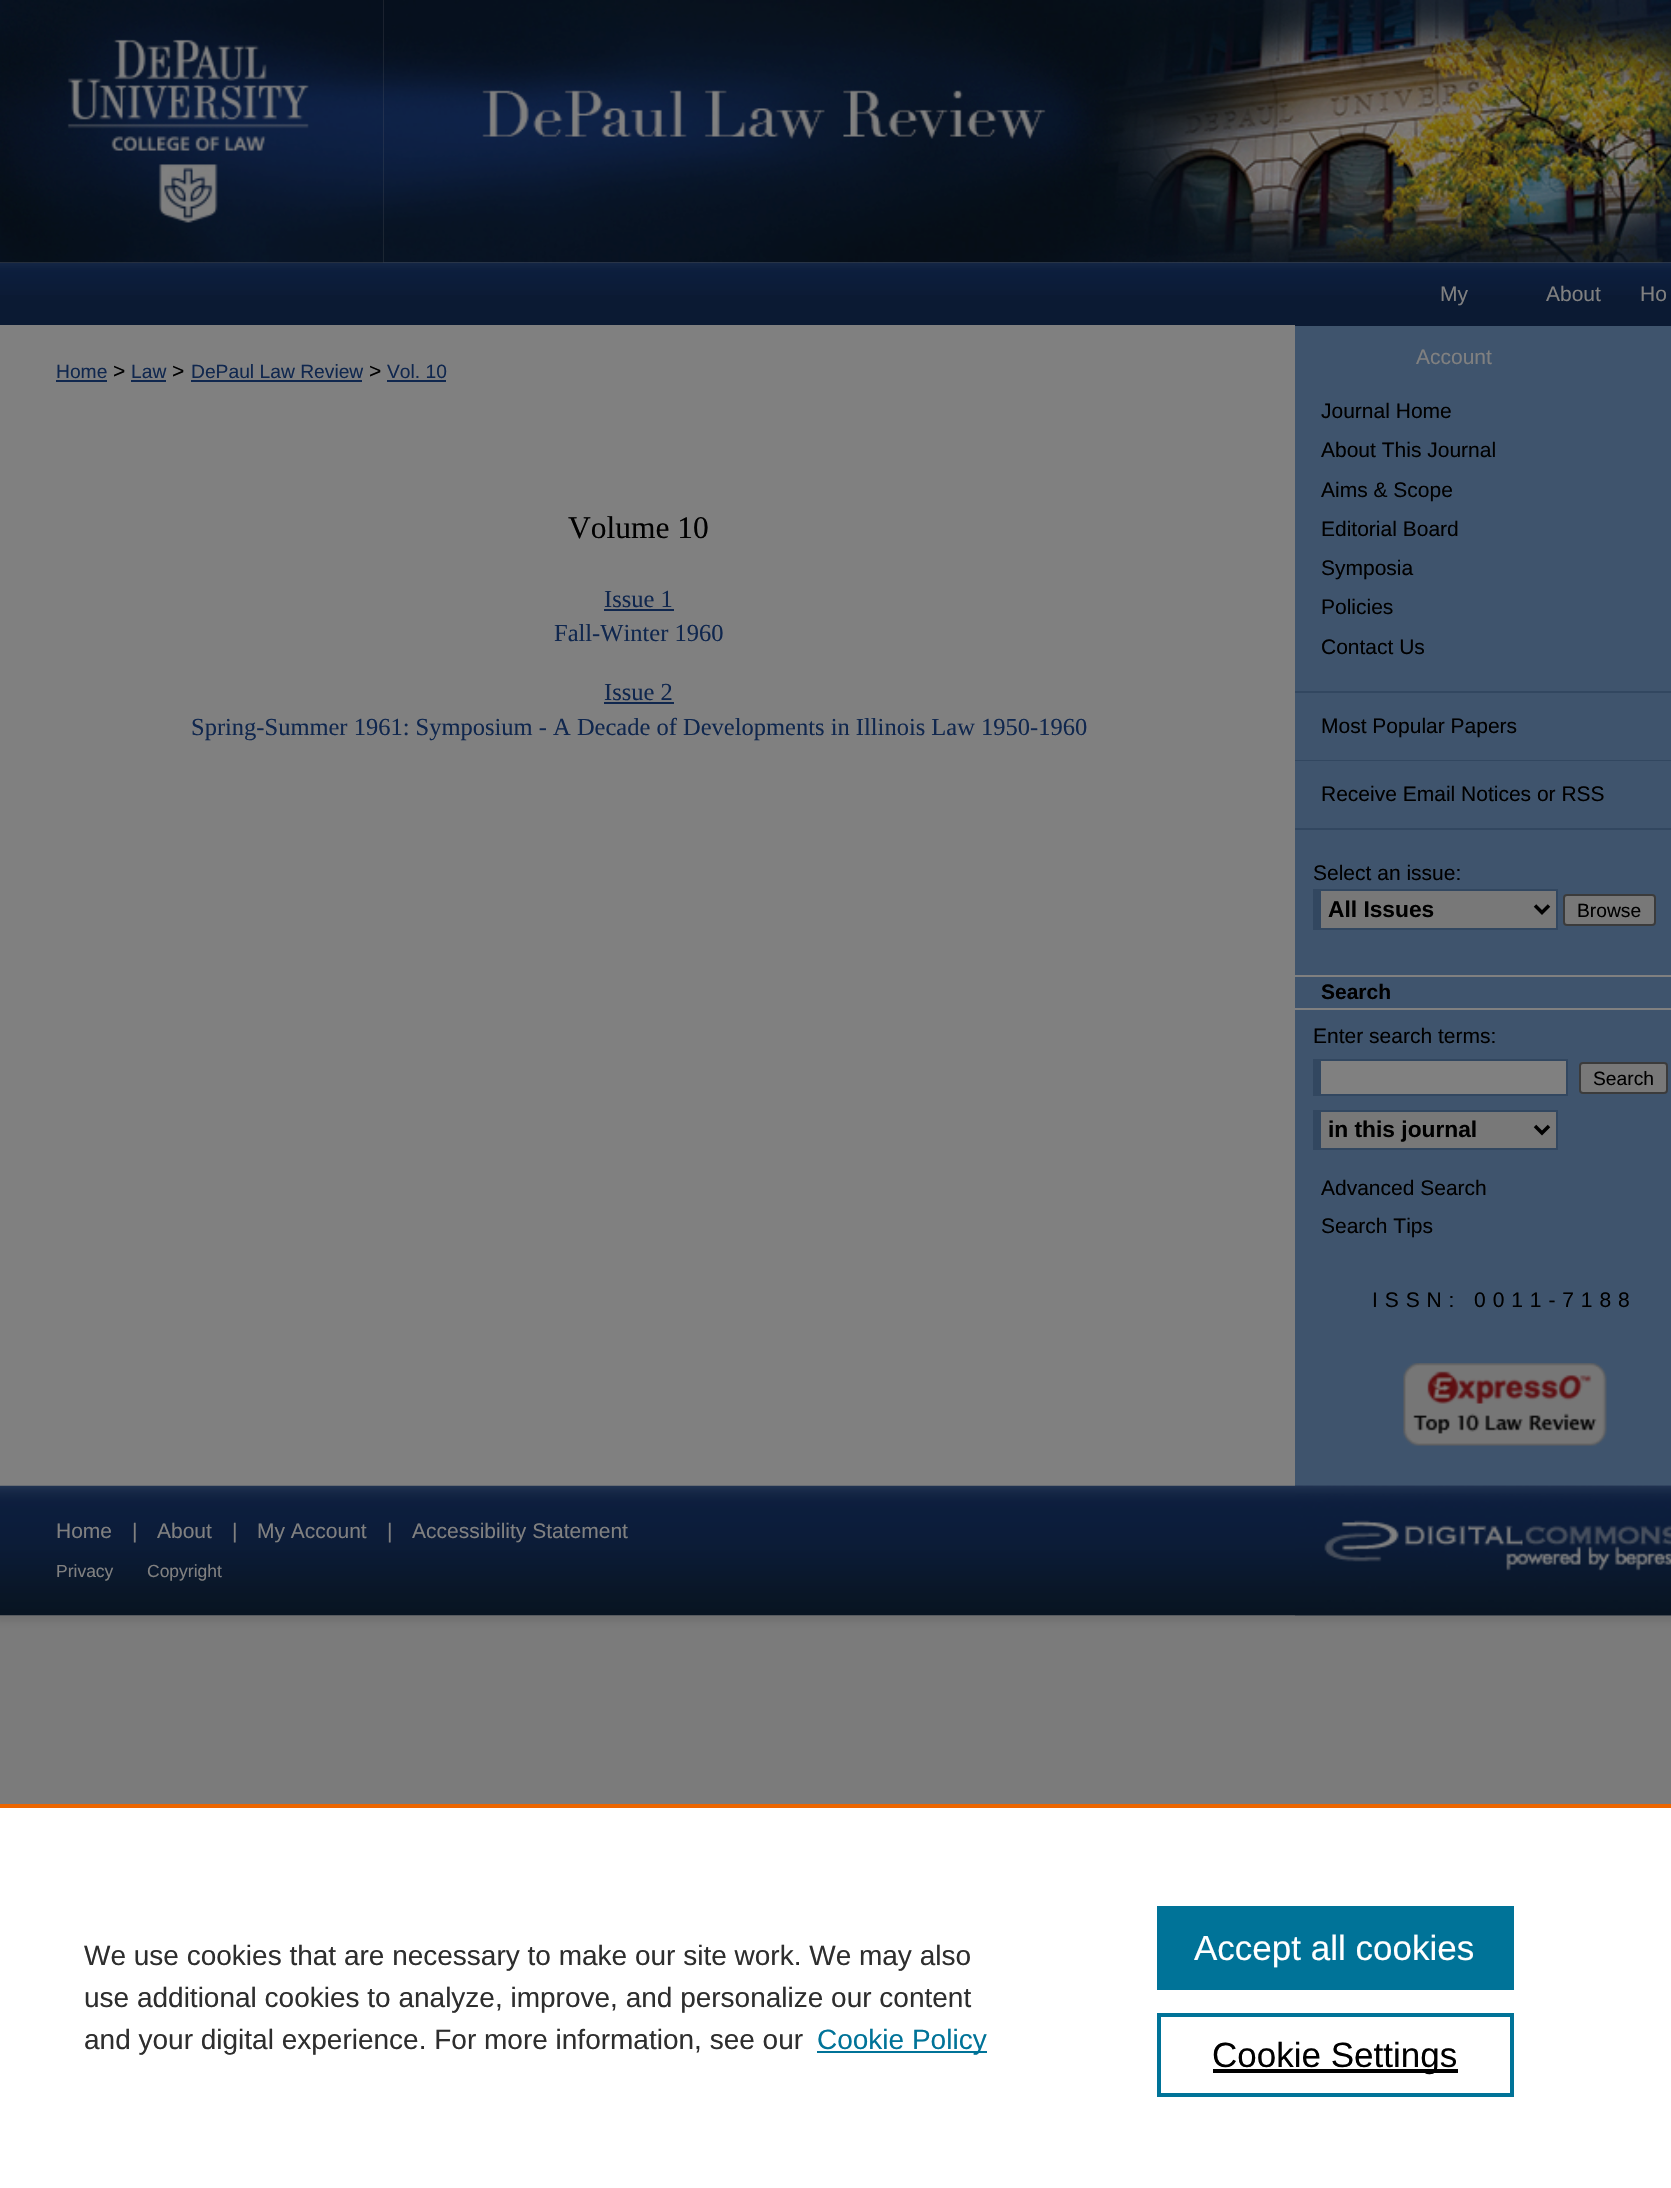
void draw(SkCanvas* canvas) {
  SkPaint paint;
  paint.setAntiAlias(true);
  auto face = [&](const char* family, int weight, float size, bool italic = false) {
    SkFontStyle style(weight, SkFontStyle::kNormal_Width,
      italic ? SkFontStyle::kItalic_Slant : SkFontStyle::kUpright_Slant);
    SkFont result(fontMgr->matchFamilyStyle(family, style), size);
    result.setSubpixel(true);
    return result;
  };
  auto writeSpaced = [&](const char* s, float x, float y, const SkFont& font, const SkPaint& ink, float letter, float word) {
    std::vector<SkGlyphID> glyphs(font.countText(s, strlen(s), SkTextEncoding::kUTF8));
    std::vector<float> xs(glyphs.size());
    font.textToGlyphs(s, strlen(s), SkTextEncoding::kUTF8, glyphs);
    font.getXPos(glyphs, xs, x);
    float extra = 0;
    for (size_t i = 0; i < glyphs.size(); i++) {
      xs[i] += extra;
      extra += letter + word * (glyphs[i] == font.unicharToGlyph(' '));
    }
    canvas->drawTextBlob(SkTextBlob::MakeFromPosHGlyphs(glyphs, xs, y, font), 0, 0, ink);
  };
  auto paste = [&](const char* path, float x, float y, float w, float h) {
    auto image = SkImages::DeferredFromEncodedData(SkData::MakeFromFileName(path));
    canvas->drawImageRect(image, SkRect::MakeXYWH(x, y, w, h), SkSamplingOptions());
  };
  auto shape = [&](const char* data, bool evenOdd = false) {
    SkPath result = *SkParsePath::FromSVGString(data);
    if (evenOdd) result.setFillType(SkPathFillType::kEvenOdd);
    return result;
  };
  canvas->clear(0xff7b7b7b);
  paint.setColor(0xff717171);
  paint.setMaskFilter(SkMaskFilter::MakeBlur(kNormal_SkBlurStyle, 3.5f));
  canvas->drawRect(SkRect::MakeXYWH(-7, -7, 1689, 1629), paint);
  paint.setMaskFilter(nullptr);
  paste("img/2.png", 383, 0, 1288, 263);
  paste("img/3.png", 0, 262, 1671, 33);
  paste("img/1.png", 0, 0, 384, 263);
  {
    const struct { float x, y, w, h; SkColor color; } items[] = {
      {0, 295, 1671, 31, 0xff0b1a33},
      {1295, 326, 376, 1160, 0xff3f546d},
      {0, 325, 1295, 1161, 0xff808080},
      {56, 380, 51, 2, 0xff10274e},
      {131, 380, 35, 2, 0xff10274e},
      {191, 380, 171, 2, 0xff10274e},
      {387, 380, 59, 2, 0xff10274e},
      {604, 609, 70, 2, 0xff10274e},
      {604, 702, 70, 2, 0xff10274e},
      {1295, 691, 376, 2, 0xff324760},
      {1295, 760, 376, 1, 0xff324760},
      {1295, 828, 376, 2, 0xff324760},
      {1321, 891, 235, 37, 0xff787878},
      {1313, 889, 245, 2, 0xff324760},
      {1556, 889, 2, 40, 0xff324760},
      {1313, 928, 245, 2, 0xff324760},
      {1313, 889, 8, 40, 0xff324760},
    };
    for (auto [x, y, w, h, color] : items) {
      paint.setColor(color);
      canvas->drawRect(SkRect::MakeXYWH(x, y, w, h), paint);
    }
  }
  paint.setStroke(true);
  paint.setStrokeWidth(3.5f);
  paint.setColor(0xff000000);
  canvas->drawPath(shape("M1535 905.5L1542 912.5L1549 905.5"), paint);
  paint.setStroke(false);
  paint.setColor(0xff787878);
  canvas->drawRoundRect(SkRect::MakeXYWH(1564, 895, 91, 30), 3, 3, paint);
  paint.setStroke(true);
  paint.setStrokeWidth(2);
  paint.setColor(0xff3b3b3b);
  canvas->drawRoundRect(SkRect::MakeXYWH(1564, 895, 91, 30), 3, 3, paint);
  paint.setStroke(false);
  {
    const struct { float x, y, w, h; SkColor color; } items[] = {
      {1295, 975, 376, 2, 0xff808080},
      {1295, 1008, 376, 2, 0xff808080},
      {1321, 1061, 245, 33, 0xff808080},
      {1313, 1059, 255, 2, 0xff324760},
      {1566, 1059, 2, 37, 0xff324760},
      {1313, 1094, 255, 2, 0xff324760},
      {1313, 1059, 8, 37, 0xff324760},
    };
    for (auto [x, y, w, h, color] : items) {
      paint.setColor(color);
      canvas->drawRect(SkRect::MakeXYWH(x, y, w, h), paint);
    }
  }
  paint.setColor(0xff787878);
  canvas->drawRoundRect(SkRect::MakeXYWH(1580, 1063, 87, 30), 3, 3, paint);
  paint.setStroke(true);
  paint.setColor(0xff3b3b3b);
  canvas->drawRoundRect(SkRect::MakeXYWH(1580, 1063, 87, 30), 3, 3, paint);
  paint.setStroke(false);
  {
    const struct { float x, y, w, h; SkColor color; } items[] = {
      {1321, 1112, 235, 36, 0xff787878},
      {1313, 1110, 245, 2, 0xff324760},
      {1556, 1110, 2, 40, 0xff324760},
      {1313, 1148, 245, 2, 0xff324760},
      {1313, 1110, 8, 40, 0xff324760},
    };
    for (auto [x, y, w, h, color] : items) {
      paint.setColor(color);
      canvas->drawRect(SkRect::MakeXYWH(x, y, w, h), paint);
    }
  }
  paint.setStroke(true);
  paint.setStrokeWidth(3.5f);
  paint.setColor(0xff000000);
  canvas->drawPath(shape("M1535 1126L1542 1133L1549 1126"), paint);
  paste("img/4.png", 1403, 1363, 204, 83);
  paste("img/5.png", 0, 1485, 1671, 131);
  paste("img/6.png", 1295, 1485, 376, 131);
  paint.setStroke(false);
  {
    const struct { float x, y, w, h; SkColor color; } items[] = {
      {0, 1808, 1671, 380, 0xffffffff},
      {0, 1804, 1671, 4, 0xffeb6500},
      {817, 2051, 170, 2, 0xff007398},
      {1157, 1906, 357, 84, 0xff007398},
    };
    for (auto [x, y, w, h, color] : items) {
      paint.setColor(color);
      canvas->drawRect(SkRect::MakeXYWH(x, y, w, h), paint);
    }
  }
  paint.setStroke(true);
  paint.setStrokeWidth(4);
  canvas->drawRect(SkRect::MakeXYWH(1159, 2015, 353, 80), paint);
  paint.setStroke(false);
  paint.setColor(0xff000000);
  canvas->drawRect(SkRect::MakeXYWH(1213, 2069, 245, 4), paint);
  auto f0 = face("Liberation Sans", 400, 21);
  paint.setColor(0xff808080);
  {
    const struct { const char* s; float x, y; } items[] = {
      {"My", 1440, 301},
      {"Account", 1416, 364},
      {"About", 1546, 301},
      {"Ho", 1640, 301},
    };
    for (auto [s, x, y] : items) {
      canvas->drawString(s, x, y, f0, paint);
    }
  }
  auto f1 = face("Liberation Sans", 400, 19.25f);
  paint.setColor(0xff10274e);
  canvas->drawString("Home", 56, 378, f1, paint);
  paint.setColor(0xff000000);
  canvas->drawString(">", 113, 378, f0, paint);
  paint.setColor(0xff10274e);
  canvas->drawString("Law", 131, 378, f1, paint);
  paint.setColor(0xff000000);
  canvas->drawString(">", 172, 378, f0, paint);
  paint.setColor(0xff10274e);
  canvas->drawString("DePaul Law Review", 191, 378, f1, paint);
  paint.setColor(0xff000000);
  canvas->drawString(">", 369, 378, f0, paint);
  paint.setColor(0xff10274e);
  canvas->drawString("Vol. 10", 387, 378, f1, paint);
  auto f2 = face("Liberation Serif", 400, 31.5f);
  paint.setColor(0xff000000);
  canvas->drawString("Volume 10", 568, 538, f2, paint);
  auto f3 = face("Liberation Serif", 400, 24.5f);
  paint.setColor(0xff10274e);
  {
    const struct { const char* s; float x, y; } items[] = {
      {"Issue 1", 604, 607},
      {"Fall-Winter 1960", 554, 641},
      {"Issue 2", 604, 700},
      {"Spring-Summer 1961: Symposium - A Decade of Developments in Illinois Law 1950-1960", 191, 735},
    };
    for (auto [s, x, y] : items) {
      canvas->drawString(s, x, y, f3, paint);
    }
  }
  paint.setColor(0xff000000);
  {
    const struct { const char* s; float x, y; } items[] = {
      {"Journal Home", 1321, 418},
      {"About This Journal", 1321, 457},
      {"Aims & Scope", 1321, 497},
      {"Editorial Board", 1321, 536},
      {"Symposia", 1321, 575},
      {"Policies", 1321, 614},
      {"Contact Us", 1321, 654},
      {"Most Popular Papers", 1321, 733},
      {"Receive Email Notices or RSS", 1321, 801},
      {"Select an issue:", 1313, 880},
    };
    for (auto [s, x, y] : items) {
      canvas->drawString(s, x, y, f0, paint);
    }
  }
  auto f4 = face("Liberation Sans", 700, 22.75f);
  canvas->drawString("All Issues", 1328, 917, f4, paint);
  canvas->drawString("Browse", 1577, 917, f1, paint);
  auto f5 = face("Liberation Sans", 700, 21);
  canvas->drawString("Search", 1321, 999, f5, paint);
  canvas->drawString("Enter search terms:", 1313, 1043, f0, paint);
  canvas->drawString("Search", 1593, 1085, f1, paint);
  canvas->drawString("in this journal", 1328, 1137, f4, paint);
  canvas->drawString("Advanced Search", 1321, 1195, f0, paint);
  canvas->drawString("Search Tips", 1321, 1233, f0, paint);
  writeSpaced("ISSN: 0011-7188", 1372, 1307, f0, paint, 6.9f, 0);
  paint.setColor(0xff808080);
  {
    const struct { const char* s; float x, y; } items[] = {
      {"Home", 56, 1538},
      {"|", 132, 1538},
      {"About", 157, 1538},
      {"|", 232, 1538},
      {"My Account", 257, 1538},
      {"|", 387, 1538},
      {"Accessibility Statement", 412, 1538},
    };
    for (auto [s, x, y] : items) {
      canvas->drawString(s, x, y, f0, paint);
    }
  }
  auto f6 = face("Liberation Sans", 400, 17.5f);
  canvas->drawString("Privacy", 56, 1577, f6, paint);
  canvas->drawString("Copyright", 147, 1577, f6, paint);
  auto f7 = face("Liberation Sans", 400, 28);
  paint.setColor(0xff2e2e2e);
  {
    const struct { const char* s; float x, y; } items[] = {
      {"We use cookies that are necessary to make our site work. We may also", 84, 1965},
      {"use additional cookies to analyze, improve, and personalize our content", 84, 2007},
      {"and your digital experience. For more information, see our", 84, 2049},
    };
    for (auto [s, x, y] : items) {
      canvas->drawString(s, x, y, f7, paint);
    }
  }
  paint.setColor(0xff007398);
  canvas->drawString("Cookie Policy", 817, 2049, f7, paint);
  auto f8 = face("Liberation Sans", 400, 35);
  paint.setColor(0xffffffff);
  canvas->drawString("Accept all cookies", 1194, 1960, f8, paint);
  paint.setColor(0xff000000);
  canvas->drawString("Cookie Settings", 1212, 2067, f8, paint);
}
